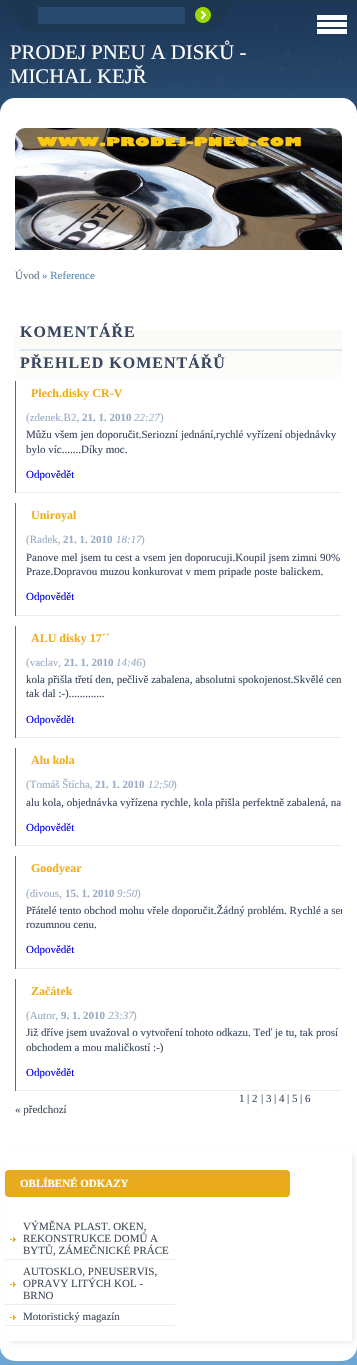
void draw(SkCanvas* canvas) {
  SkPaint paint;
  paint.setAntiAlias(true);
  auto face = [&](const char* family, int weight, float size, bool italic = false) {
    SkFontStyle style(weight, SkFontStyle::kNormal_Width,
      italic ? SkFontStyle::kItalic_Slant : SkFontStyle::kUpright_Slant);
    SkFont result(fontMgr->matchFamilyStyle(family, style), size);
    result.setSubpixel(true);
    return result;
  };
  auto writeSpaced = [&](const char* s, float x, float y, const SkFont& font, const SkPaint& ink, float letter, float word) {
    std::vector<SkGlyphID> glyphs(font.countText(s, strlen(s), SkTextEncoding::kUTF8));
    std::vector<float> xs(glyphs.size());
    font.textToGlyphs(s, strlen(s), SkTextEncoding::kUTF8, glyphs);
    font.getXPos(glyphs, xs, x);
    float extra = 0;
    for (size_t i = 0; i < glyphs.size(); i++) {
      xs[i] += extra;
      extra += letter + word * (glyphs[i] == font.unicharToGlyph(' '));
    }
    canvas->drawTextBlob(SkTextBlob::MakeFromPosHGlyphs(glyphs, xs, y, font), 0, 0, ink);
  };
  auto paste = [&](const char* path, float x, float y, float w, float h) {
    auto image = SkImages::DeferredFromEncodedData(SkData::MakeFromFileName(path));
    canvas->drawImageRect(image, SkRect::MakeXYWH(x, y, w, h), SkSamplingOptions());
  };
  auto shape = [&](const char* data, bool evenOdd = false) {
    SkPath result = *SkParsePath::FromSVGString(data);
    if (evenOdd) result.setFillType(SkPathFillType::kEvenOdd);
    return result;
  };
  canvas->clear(0xff6ba6d4);
  paste("img/1.png", 0, 0, 357, 113);
  {
    const struct { float x, y, w, h; SkColor color; } items[] = {
      {317, 15, 30, 5, 0xffffffff},
      {317, 22, 30, 5, 0xffffffff},
      {317, 29, 30, 5, 0xffffffff},
    };
    for (auto [x, y, w, h, color] : items) {
      paint.setColor(color);
      canvas->drawRect(SkRect::MakeXYWH(x, y, w, h), paint);
    }
  }
  canvas->drawRoundRect(SkRect::MakeXYWH(0, 98, 357, 1263), 15, 15, paint);
  paste("img/2.png", 15, 128, 327, 122);
  paste("img/3.png", 15, 330, 327, 48);
  {
    const struct { float x, y, w, h; SkColor color; } items[] = {
      {20, 349, 322, 2, 0xffdee8f1},
      {15, 492, 327, 1, 0xffededeb},
      {15, 381, 1, 112, 0xff41719b},
      {15, 615, 327, 1, 0xffededeb},
      {15, 503, 1, 113, 0xff41719b},
      {15, 737, 327, 1, 0xffededeb},
      {15, 626, 1, 112, 0xff41719b},
      {15, 845, 327, 1, 0xffededeb},
      {15, 748, 1, 98, 0xff41719b},
      {15, 968, 327, 1, 0xffededeb},
      {15, 856, 1, 113, 0xff41719b},
      {15, 1090, 327, 1, 0xffededeb},
      {15, 979, 1, 112, 0xff41719b},
    };
    for (auto [x, y, w, h, color] : items) {
      paint.setColor(color);
      canvas->drawRect(SkRect::MakeXYWH(x, y, w, h), paint);
    }
  }
  canvas->save();
  canvas->clipPath(shape("M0 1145H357V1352H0ZM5 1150H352V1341H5Z", true), true);
  paint.setColor(0xffe6e5e5);
  paint.setMaskFilter(SkMaskFilter::MakeBlur(kNormal_SkBlurStyle, 3));
  canvas->drawRect(SkRect::MakeXYWH(10, 1155, 343, 187), paint);
  paint.setMaskFilter(nullptr);
  canvas->restore();
  paste("img/4.png", 1, 2, 232, 29);
  paint.setColor(0xff294a6e);
  canvas->drawRect(SkRect::MakeXYWH(38, 7, 147, 17), paint);
  paste("img/5.png", 195, 7, 16, 16);
  paint.setColor(0xffe9aa1d);
  canvas->drawRoundRect(SkRect::MakeXYWH(5, 1170, 285, 27), 4, 4, paint);
  paste("img/6.png", 10, 1237, 6, 5);
  paint.setColor(0xffededeb);
  canvas->drawRect(SkRect::MakeXYWH(5, 1259, 170, 1), paint);
  paste("img/6.png", 10, 1282, 6, 5);
  canvas->drawRect(SkRect::MakeXYWH(5, 1304, 170, 1), paint);
  paste("img/6.png", 10, 1315, 6, 5);
  canvas->drawRect(SkRect::MakeXYWH(5, 1325, 170, 1), paint);
  auto f0 = face("Liberation Serif", 400, 20.75f);
  paint.setColor(0xffffffff);
  canvas->drawString("PRODEJ PNEU A DISKŮ -", 10, 59, f0, paint);
  canvas->drawString("MICHAL KEJŘ", 10, 83, f0, paint);
  auto f1 = face("Liberation Serif", 400, 11);
  paint.setColor(0xff69708a);
  canvas->drawString("Úvod", 15, 279, f1, paint);
  paint.setColor(0xff578dbb);
  canvas->drawString("» Reference", 42, 279, f1, paint);
  auto f2 = face("Liberation Serif", 700, 16);
  paint.setColor(0xff39475f);
  writeSpaced("KOMENTÁŘE", 20, 337, f2, paint, 1, 0);
  writeSpaced("PŘEHLED KOMENTÁŘŮ", 20, 368, f2, paint, 1, 0);
  auto f3 = face("Liberation Serif", 700, 12);
  paint.setColor(0xfff1ae19);
  canvas->drawString("Plech.disky CR-V", 31, 397, f3, paint);
  paint.setColor(0xff9aacc5);
  canvas->drawString("(zdenek.B2,", 26, 421, f1, paint);
  auto f4 = face("Liberation Serif", 700, 11);
  canvas->drawString("21. 1. 2010", 82, 421, f4, paint);
  auto f5 = face("Liberation Serif", 400, 11, true);
  canvas->drawString("22:27", 134, 421, f5, paint);
  canvas->drawString(")", 160, 421, f1, paint);
  paint.setColor(0xff39475f);
  canvas->drawString("Můžu všem jen doporučit.Seriozní jednání,rychlé vyřízení objednávky", 26, 438, f1, paint);
  canvas->drawString("bylo víc.......Díky moc.", 26, 453, f1, paint);
  paint.setColor(0xff0000ee);
  canvas->drawString("Odpovědět", 26, 478, f1, paint);
  paint.setColor(0xfff1ae19);
  canvas->drawString("Uniroyal", 31, 519, f3, paint);
  paint.setColor(0xff9aacc5);
  canvas->drawString("(Radek,", 26, 543, f1, paint);
  canvas->drawString("21. 1. 2010", 63, 543, f4, paint);
  canvas->drawString("18:17", 116, 543, f5, paint);
  canvas->drawString(")", 141, 543, f1, paint);
  paint.setColor(0xff39475f);
  canvas->drawString("Panove mel jsem tu cest a vsem jen doporucuji.Koupil jsem zimni 90%", 26, 561, f1, paint);
  canvas->drawString("Praze.Dopravou muzou konkurovat v mem pripade poste balickem.", 26, 575, f1, paint);
  paint.setColor(0xff0000ee);
  canvas->drawString("Odpovědět", 26, 600, f1, paint);
  paint.setColor(0xfff1ae19);
  canvas->drawString("ALU disky 17´´", 31, 642, f3, paint);
  paint.setColor(0xff9aacc5);
  canvas->drawString("(vaclav,", 26, 666, f1, paint);
  canvas->drawString("21. 1. 2010", 64, 666, f4, paint);
  canvas->drawString("14:46", 116, 666, f5, paint);
  canvas->drawString(")", 142, 666, f1, paint);
  paint.setColor(0xff39475f);
  canvas->drawString("kola přišla třetí den, pečlivě zabalena, absolutni spokojenost.Skvělé cen", 26, 683, f1, paint);
  canvas->drawString("tak dal :-).............", 26, 697, f1, paint);
  paint.setColor(0xff0000ee);
  canvas->drawString("Odpovědět", 26, 723, f1, paint);
  paint.setColor(0xfff1ae19);
  canvas->drawString("Alu kola", 31, 764, f3, paint);
  paint.setColor(0xff9aacc5);
  canvas->drawString("(Tomáš Štícha,", 26, 788, f1, paint);
  canvas->drawString("21. 1. 2010", 95, 788, f4, paint);
  canvas->drawString("12:50", 148, 788, f5, paint);
  canvas->drawString(")", 173, 788, f1, paint);
  paint.setColor(0xff39475f);
  canvas->drawString("alu kola, objednávka vyřízena rychle, kola přišla perfektně zabalená, na", 26, 806, f1, paint);
  paint.setColor(0xff0000ee);
  canvas->drawString("Odpovědět", 26, 831, f1, paint);
  paint.setColor(0xfff1ae19);
  canvas->drawString("Goodyear", 31, 872, f3, paint);
  paint.setColor(0xff9aacc5);
  canvas->drawString("(divous,", 26, 897, f1, paint);
  canvas->drawString("15. 1. 2010", 65, 897, f4, paint);
  canvas->drawString("9:50", 117, 897, f5, paint);
  canvas->drawString(")", 137, 897, f1, paint);
  canvas->save();
  canvas->clipRect(SkRect::MakeXYWH(15, 290, 327, 830));
  paint.setColor(0xff39475f);
  canvas->drawString("Přátelé tento obchod mohu vřele doporučit.Žádný problém. Rychlé a ser", 26, 914, f1, paint);
  canvas->restore();
  canvas->drawString("rozumnou cenu.", 26, 928, f1, paint);
  paint.setColor(0xff0000ee);
  canvas->drawString("Odpovědět", 26, 953, f1, paint);
  paint.setColor(0xfff1ae19);
  canvas->drawString("Začátek", 31, 995, f3, paint);
  paint.setColor(0xff9aacc5);
  canvas->drawString("(Autor,", 26, 1019, f1, paint);
  canvas->drawString("9. 1. 2010", 61, 1019, f4, paint);
  canvas->drawString("23:37", 108, 1019, f5, paint);
  canvas->drawString(")", 133, 1019, f1, paint);
  paint.setColor(0xff39475f);
  canvas->drawString("Již dříve jsem uvažoval o vytvoření tohoto odkazu. Teď je tu, tak prosí", 26, 1036, f1, paint);
  canvas->drawString("obchodem a mou maličkostí :-)", 26, 1051, f1, paint);
  paint.setColor(0xff0000ee);
  canvas->drawString("Odpovědět", 26, 1076, f1, paint);
  paint.setColor(0xff434d5a);
  canvas->drawString("1", 239, 1102, f1, paint);
  paint.setColor(0xff39475f);
  canvas->drawString("|", 247, 1102, f1, paint);
  paint.setColor(0xff434d5a);
  canvas->drawString("2", 252, 1102, f1, paint);
  paint.setColor(0xff39475f);
  canvas->drawString("|", 261, 1102, f1, paint);
  paint.setColor(0xff434d5a);
  canvas->drawString("3", 266, 1102, f1, paint);
  paint.setColor(0xff39475f);
  canvas->drawString("|", 274, 1102, f1, paint);
  paint.setColor(0xff434d5a);
  canvas->drawString("4", 279, 1102, f1, paint);
  paint.setColor(0xff39475f);
  canvas->drawString("|", 287, 1102, f1, paint);
  paint.setColor(0xff434d5a);
  canvas->drawString("5", 292, 1102, f1, paint);
  paint.setColor(0xff39475f);
  canvas->drawString("| 6", 300, 1102, f1, paint);
  paint.setColor(0xff434d5a);
  canvas->drawString("« předchozí", 15, 1113, f1, paint);
  paint.setColor(0xffffffff);
  canvas->drawString("OBLÍBENÉ ODKAZY", 20, 1187, f4, paint);
  paint.setColor(0xff434d5a);
  {
    const struct { const char* s; float x, y; } items[] = {
      {"VÝMĚNA PLAST. OKEN,", 23, 1230},
      {"REKONSTRUKCE DOMŮ A", 23, 1242},
      {"BYTŮ, ZÁMEČNICKÉ PRÁCE", 23, 1254},
      {"AUTOSKLO, PNEUSERVIS,", 23, 1275},
      {"OPRAVY LITÝCH KOL -", 23, 1287},
      {"BRNO", 23, 1299},
      {"Motoristický magazín", 23, 1320},
    };
    for (auto [s, x, y] : items) {
      canvas->drawString(s, x, y, f1, paint);
    }
  }
}
